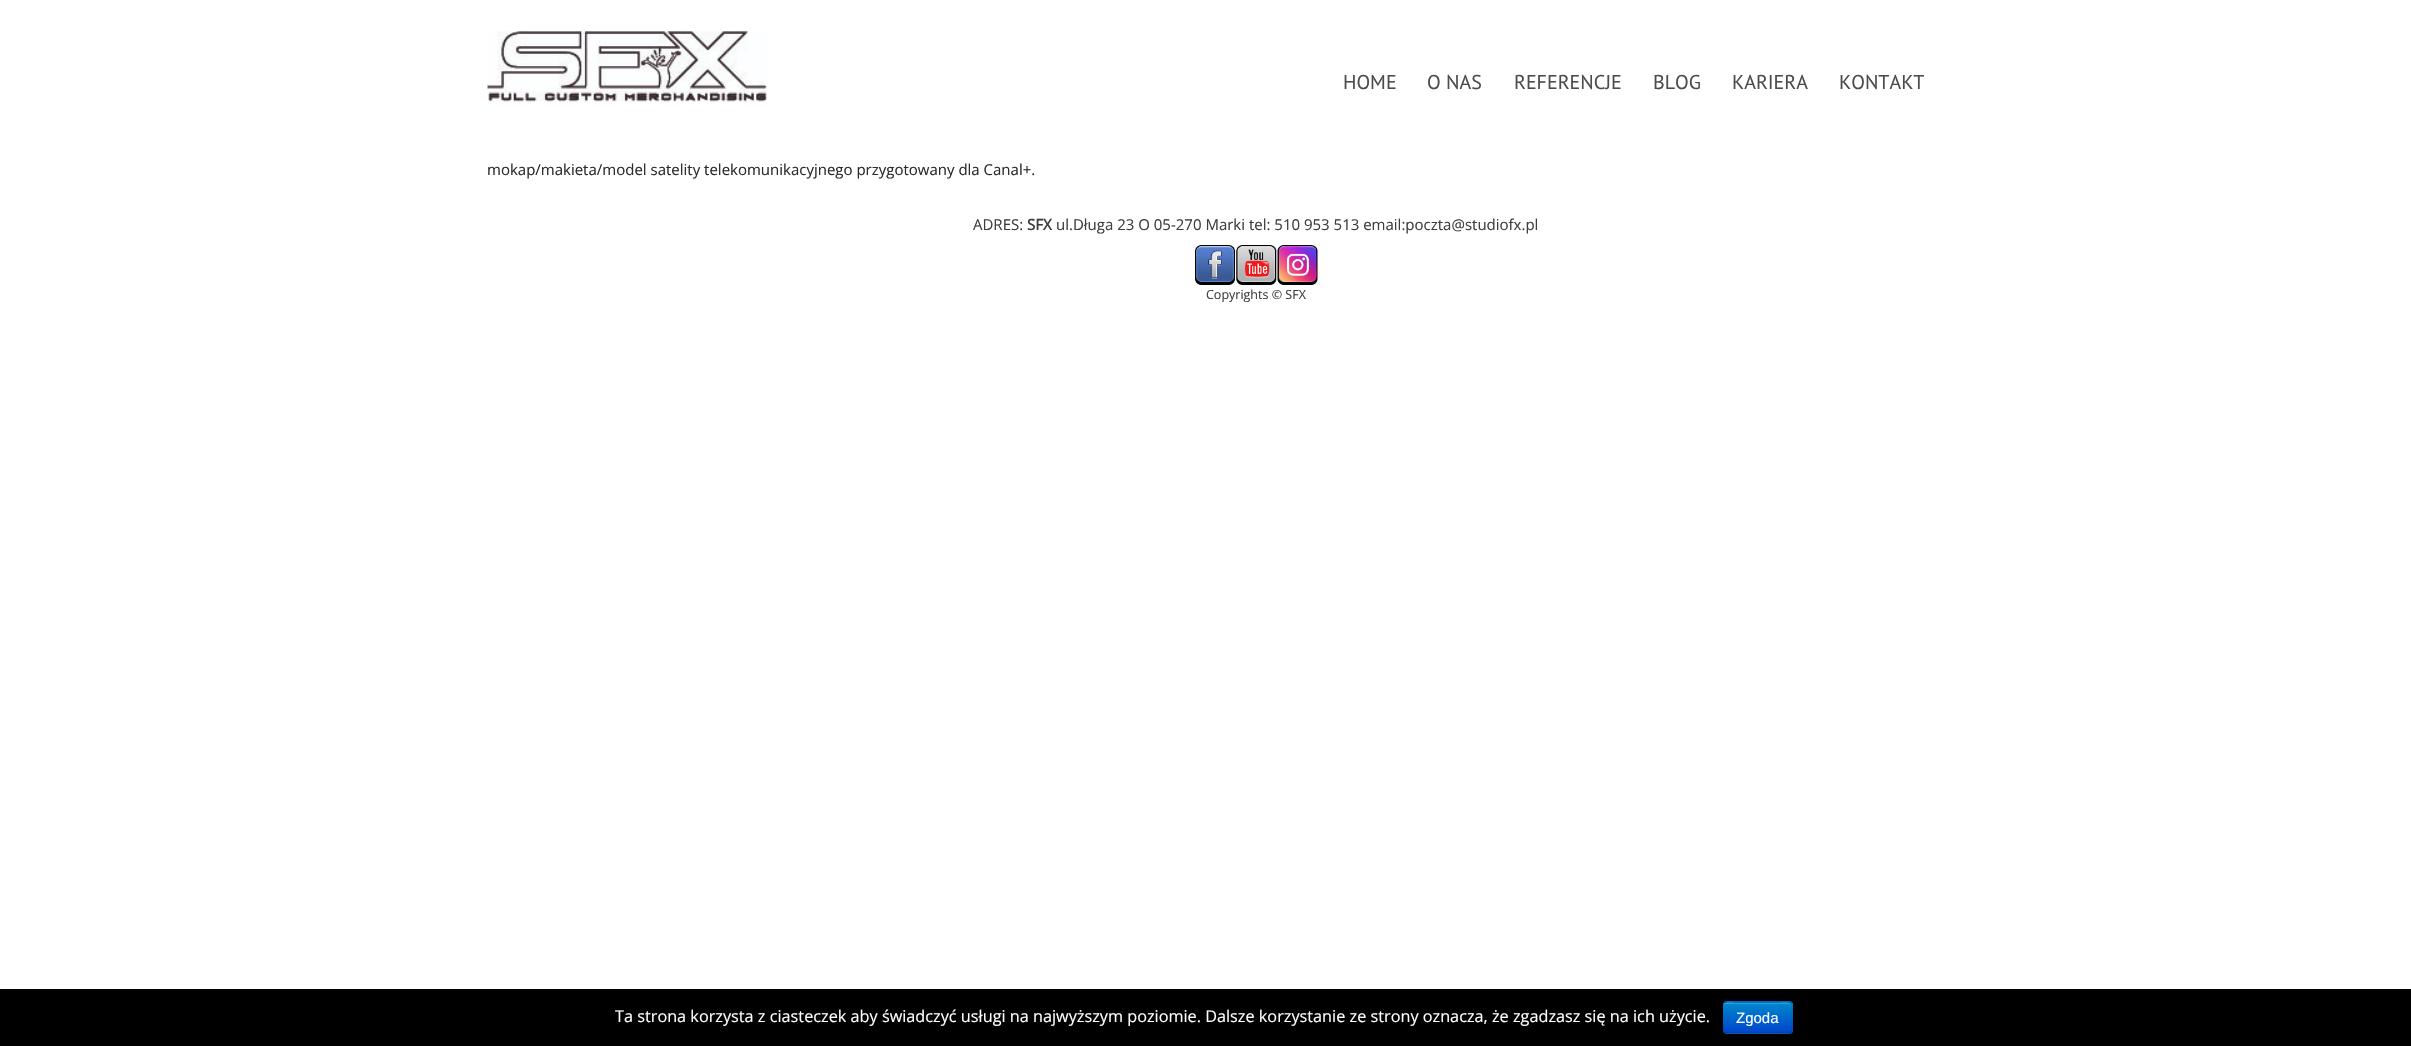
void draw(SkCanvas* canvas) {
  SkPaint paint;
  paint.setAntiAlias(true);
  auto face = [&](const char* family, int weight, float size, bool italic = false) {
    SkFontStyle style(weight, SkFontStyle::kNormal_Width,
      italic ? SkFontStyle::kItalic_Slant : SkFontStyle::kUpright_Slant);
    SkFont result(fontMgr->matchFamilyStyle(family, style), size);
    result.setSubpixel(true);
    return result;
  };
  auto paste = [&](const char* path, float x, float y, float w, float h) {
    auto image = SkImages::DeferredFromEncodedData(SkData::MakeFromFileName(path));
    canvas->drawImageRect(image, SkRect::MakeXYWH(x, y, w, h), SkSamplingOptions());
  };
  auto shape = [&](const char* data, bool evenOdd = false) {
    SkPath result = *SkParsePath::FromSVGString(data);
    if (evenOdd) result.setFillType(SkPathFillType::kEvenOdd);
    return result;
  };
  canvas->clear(0xffffffff);
  paste("img/1.png", 487, 31, 280, 71);
  paste("img/2.png", 1195, 245, 40, 40);
  paste("img/3.png", 1236, 245, 41, 40);
  paste("img/4.png", 1277, 245, 41, 40);
  paint.setColor(0xff000000);
  canvas->drawRect(SkRect::MakeXYWH(0, 989, 2411, 57), paint);
  paint.setColor(0xff006dcc);
  canvas->drawRoundRect(SkRect::MakeXYWH(1723, 1001, 70, 33), 4, 4, paint);
  canvas->save();
  canvas->clipPath(shape("M1727 1001H1789C1791 1001 1793 1003 1793 1005V1030C1793 1032 1791 1034 1789 1034H1727C1725 1034 1723 1032 1723 1030V1005C1723 1003 1725 1001 1727 1001Z"), true);
  {
    const SkColor colors[] = {0xff0088cc, 0xff0044cc};
    const float stops[] = {0, 1};
    const SkPoint ends[] = {{1758, 1003}, {1758, 1033}};
    paint.setShader(SkGradientShader::MakeLinear(ends, colors, stops, 2, SkTileMode::kClamp));
    paint.setAlpha(255);
  }
  canvas->drawRect(SkRect::MakeXYWH(1723, 1003, 70, 30), paint);
  canvas->restore();
  paint.setShader(nullptr);
  paint.setColor(0x33ffffff);
  canvas->drawPath(shape("M1726 1004H1790L1791 1006C1791 1000 1780 1003 1778 1003H1737C1735 1003 1724 1000 1724 1006C1724 1005 1725 1004 1726 1004Z"), paint);
  paint.setStroke(true);
  paint.setStrokeWidth(1.2f);
  paint.setColor(0x40000000);
  canvas->drawPath(shape("M1791 1032L1789 1033H1726L1724 1032"), paint);
  paint.setColor(0x1a000000);
  canvas->drawPath(shape("M1724 1032C1722 1030 1723 1020.5 1723 1017.5C1723 1000.5 1720 1002 1736.5 1002H1778.5C1795 1002 1792 1000.5 1792 1017.5C1792 1020.5 1793 1030 1791 1032"), paint);
  auto f0 = face("PT Sans", 400, 20);
  paint.setStroke(false);
  paint.setColor(0xff4c4c4c);
  {
    const struct { const char* s; float x, y; } items[] = {
      {"HOME", 1343, 89},
      {"O NAS", 1427, 89},
      {"REFERENCJE", 1514, 89},
      {"BLOG", 1653, 89},
      {"KARIERA", 1732, 89},
      {"KONTAKT", 1839, 89},
    };
    for (auto [s, x, y] : items) {
      canvas->drawString(s, x, y, f0, paint);
    }
  }
  auto f1 = face("Open Sans", 400, 15);
  paint.setColor(0xff2b2b2b);
  canvas->drawString("mokap/makieta/model satelity telekomunikacyjnego przygotowany dla Canal+.", 487, 175, f1, paint);
  paint.setColor(0xff3f3d3d);
  canvas->drawString("ADRES:", 973, 230, f1, paint);
  auto f2 = face("Open Sans", 700, 15);
  canvas->drawString("SFX", 1027, 230, f2, paint);
  canvas->drawString("ul.Długa 23 O 05-270 Marki tel: 510 953 513 email:poczta@studiofx.pl", 1056, 230, f1, paint);
  auto f3 = face("Open Sans", 400, 12.5f);
  canvas->drawString("Copyrights © SFX", 1206, 299, f3, paint);
  auto f4 = face("Open Sans", 400, 16.25f);
  paint.setColor(0xffffffff);
  canvas->drawString("Ta strona korzysta z ciasteczek aby świadczyć usługi na najwyższym poziomie. Dalsze korzystanie ze strony oznacza, że zgadzasz się na ich użycie.", 615, 1022, f4, paint);
  auto f5 = face("Liberation Sans", 400, 15);
  canvas->drawString("Zgoda", 1736, 1023, f5, paint);
}
